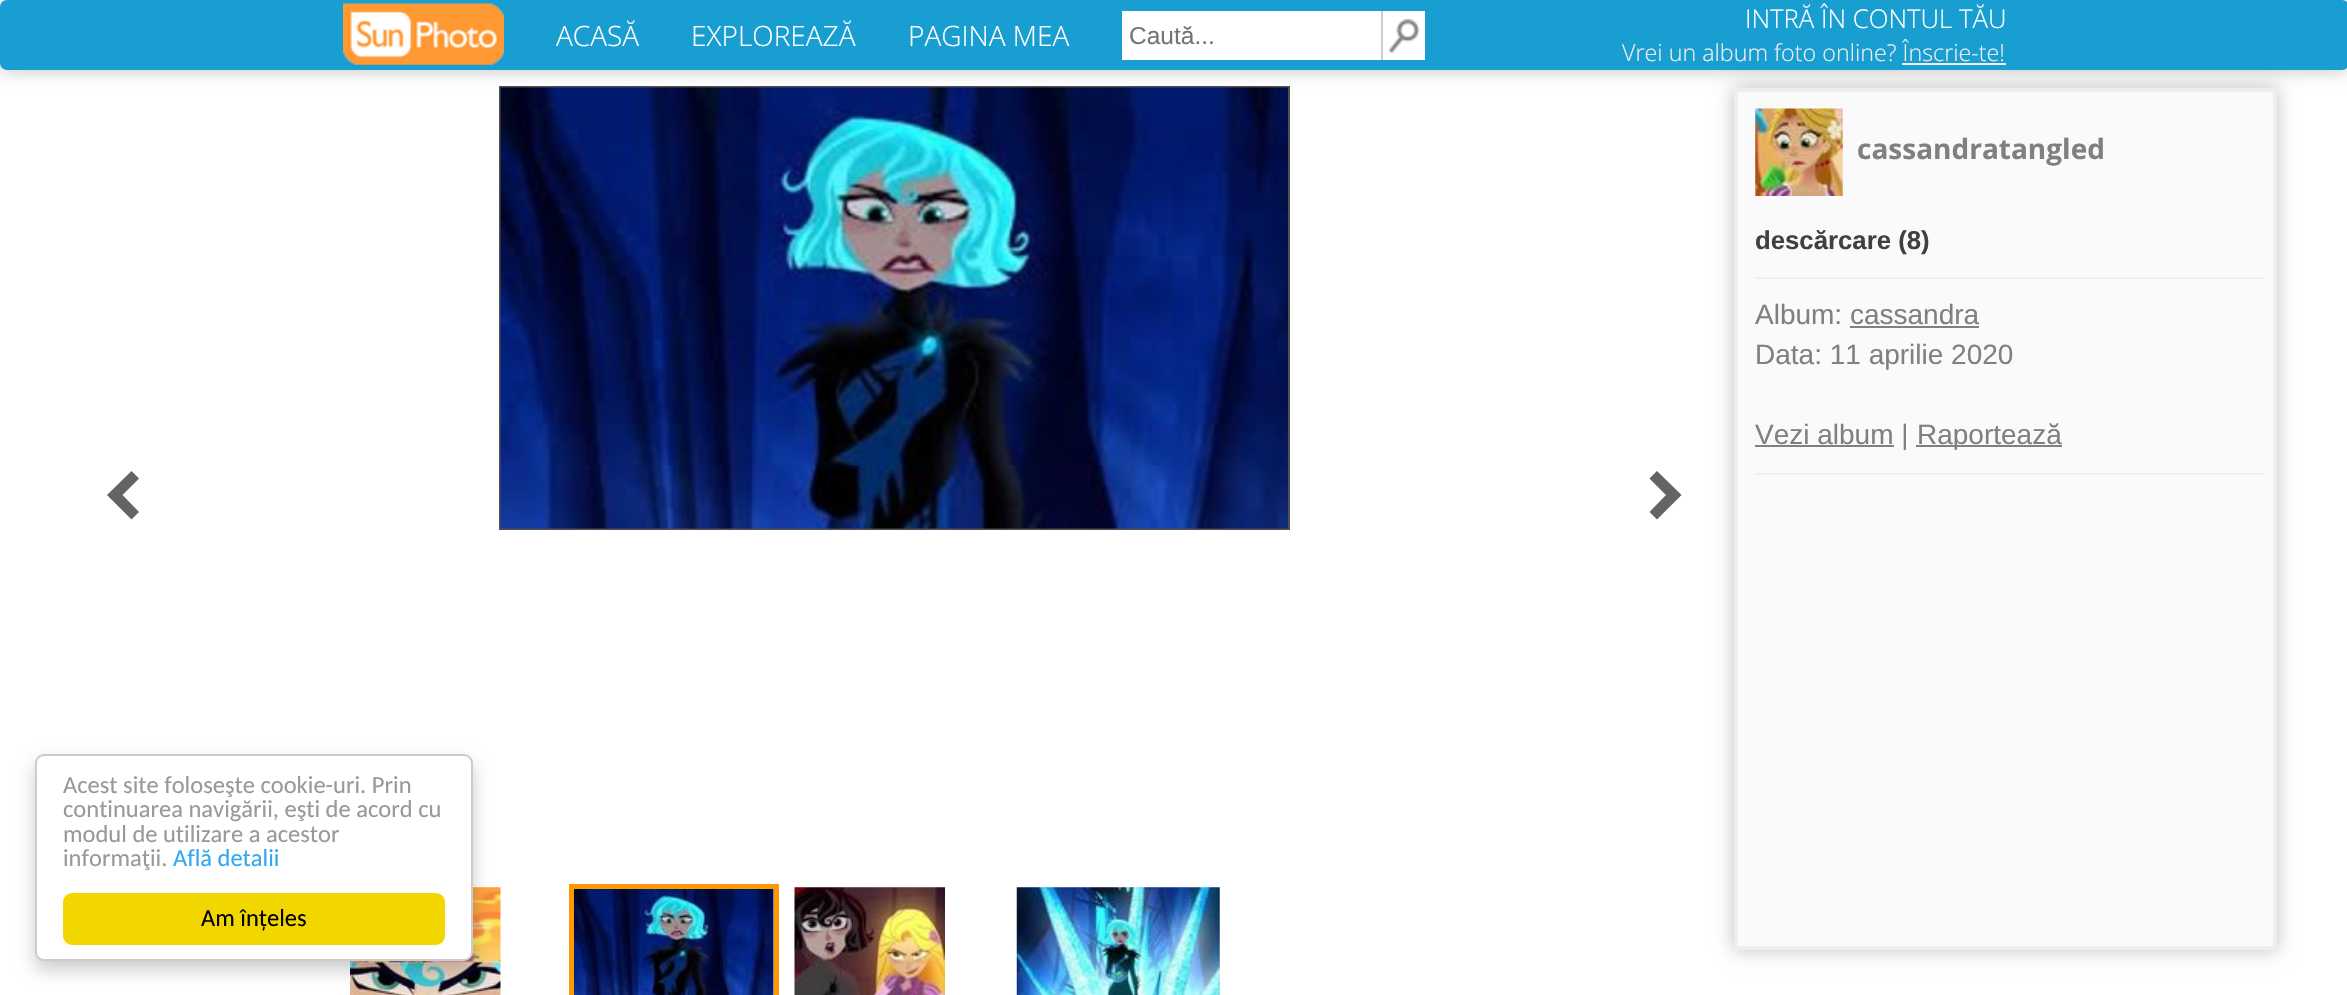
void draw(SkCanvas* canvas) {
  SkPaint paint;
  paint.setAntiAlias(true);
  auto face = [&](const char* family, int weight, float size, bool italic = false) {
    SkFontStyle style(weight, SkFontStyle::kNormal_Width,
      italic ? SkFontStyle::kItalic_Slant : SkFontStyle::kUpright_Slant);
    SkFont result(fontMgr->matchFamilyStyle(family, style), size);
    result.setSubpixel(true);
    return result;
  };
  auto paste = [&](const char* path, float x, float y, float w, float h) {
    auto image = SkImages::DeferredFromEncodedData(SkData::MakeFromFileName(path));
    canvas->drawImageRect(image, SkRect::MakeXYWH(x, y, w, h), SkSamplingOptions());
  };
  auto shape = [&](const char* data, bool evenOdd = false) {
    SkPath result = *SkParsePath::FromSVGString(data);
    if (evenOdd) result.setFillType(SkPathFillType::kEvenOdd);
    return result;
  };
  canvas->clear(0xffffffff);
  paint.setStroke(true);
  paint.setStrokeWidth(2);
  paint.setColor(0xff505050);
  canvas->drawRect(SkRect::MakeXYWH(500, 87, 789, 442), paint);
  paste("img/3.png", 500, 87, 788, 442);
  paint.setStroke(false);
  paint.setColor(0x40000000);
  paint.setMaskFilter(SkMaskFilter::MakeBlur(kNormal_SkBlurStyle, 9));
  canvas->drawRect(SkRect::MakeXYWH(1734, 88, 543, 862), paint);
  paint.setMaskFilter(nullptr);
  paint.setColor(0xfffafafa);
  canvas->drawRect(SkRect::MakeXYWH(1736, 90, 539, 858), paint);
  paint.setStroke(true);
  paint.setStrokeWidth(4);
  paint.setColor(0xffeeeeee);
  canvas->drawRect(SkRect::MakeXYWH(1736, 90, 539, 858), paint);
  paint.setStroke(false);
  paint.setColor(0x40000000);
  paint.setMaskFilter(SkMaskFilter::MakeBlur(kNormal_SkBlurStyle, 9));
  canvas->drawRoundRect(SkRect::MakeXYWH(0, 0, 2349, 70), 7, 7, paint);
  paint.setMaskFilter(nullptr);
  paint.setColor(0xff199ed2);
  canvas->drawRoundRect(SkRect::MakeXYWH(0, 0, 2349, 70), 7, 7, paint);
  paste("img/1.png", 343, 3, 161, 62);
  {
    const struct { float x, y, w, h; SkColor color; } items[] = {
      {1122, 11, 259, 49, 0xffffffff},
      {1383, 11, 42, 49, 0xffffffff},
      {1381, 11, 2, 49, 0xffcccccc},
    };
    for (auto [x, y, w, h, color] : items) {
      paint.setColor(color);
      canvas->drawRect(SkRect::MakeXYWH(x, y, w, h), paint);
    }
  }
  paste("img/2.png", 1388, 19, 32, 34);
  paint.setColor(0xffeeeeee);
  canvas->drawRect(SkRect::MakeXYWH(1902, 63, 104, 2), paint);
  paint.setColor(0xff646464);
  canvas->drawPath(shape("M137 479L132 473L110 495L132 517L137 512L120 495Z"), paint);
  paint.setStroke(true);
  paint.setStrokeWidth(3.6f);
  canvas->drawPath(shape("M136.5 478.5L131.5 473.5L109.5 495L131.5 517L136.5 512L120 495Z"), paint);
  paint.setStroke(false);
  canvas->drawPath(shape("M1657 473L1652 479L1669 495L1652 512L1657 517L1679 495Z"), paint);
  paint.setStroke(true);
  canvas->drawPath(shape("M1657 473.5L1652 478.5L1668.5 495L1652 512L1657 517L1679 495Z"), paint);
  paste("img/4.png", 1755, 108, 88, 88);
  paint.setStroke(false);
  {
    const struct { float x, y, w, h; SkColor color; } items[] = {
      {1755, 277, 510, 2, 0xffeeeeee},
      {1850, 326, 129, 2, 0xff808080},
      {1755, 445, 139, 2, 0xff808080},
      {1916, 445, 146, 2, 0xff808080},
      {1755, 473, 510, 2, 0xffeeeeee},
    };
    for (auto [x, y, w, h, color] : items) {
      paint.setColor(color);
      canvas->drawRect(SkRect::MakeXYWH(x, y, w, h), paint);
    }
  }
  paste("img/5.png", 350, 887, 151, 108);
  paint.setStroke(true);
  paint.setStrokeWidth(5);
  paint.setColor(0xfffe9901);
  canvas->drawRect(SkRect::MakeXYWH(571.5f, 886.5f, 205, 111), paint);
  paste("img/6.png", 574, 889, 200, 106);
  paste("img/7.png", 794, 887, 151, 108);
  paste("img/8.png", 1016, 887, 204, 108);
  paint.setStroke(false);
  paint.setColor(0x33000000);
  paint.setMaskFilter(SkMaskFilter::MakeBlur(kNormal_SkBlurStyle, 9));
  canvas->drawRoundRect(SkRect::MakeXYWH(35, 763, 438, 207), 9, 9, paint);
  paint.setMaskFilter(nullptr);
  paint.setColor(0xffffffff);
  canvas->drawRoundRect(SkRect::MakeXYWH(36, 755, 436, 205), 8, 8, paint);
  paint.setStroke(true);
  paint.setStrokeWidth(2);
  paint.setColor(0xffcccccc);
  canvas->drawRoundRect(SkRect::MakeXYWH(36, 755, 436, 205), 8, 8, paint);
  paint.setStroke(false);
  paint.setColor(0xfff1d600);
  canvas->drawRoundRect(SkRect::MakeXYWH(63, 893, 382, 52), 9, 9, paint);
  auto f0 = face("Open Sans", 300, 28);
  paint.setColor(0xffffffff);
  {
    const struct { const char* s; float x, y; } items[] = {
      {"ACASĂ", 556, 46},
      {"EXPLOREAZĂ", 691, 46},
      {"PAGINA MEA", 908, 46},
    };
    for (auto [s, x, y] : items) {
      canvas->drawString(s, x, y, f0, paint);
    }
  }
  auto f1 = face("Liberation Sans", 400, 24.5f);
  paint.setColor(0xff757575);
  canvas->drawString("Caută...", 1129, 44, f1, paint);
  auto f2 = face("Open Sans", 300, 25.75f);
  paint.setColor(0xffffffff);
  canvas->drawString("INTRĂ ÎN CONTUL TĂU", 1745, 28, f2, paint);
  auto f3 = face("Open Sans", 300, 23.3f);
  paint.setColor(0xffeeeeee);
  canvas->drawString("Vrei un album foto online? Înscrie-te!", 1622, 61, f3, paint);
  auto f4 = face("Open Sans", 700, 28);
  paint.setColor(0xff808080);
  canvas->drawString("cassandratangled", 1857, 159, f4, paint);
  auto f5 = face("Liberation Sans", 700, 25.75f);
  paint.setColor(0xff404040);
  canvas->drawString("descărcare (8)", 1755, 249, f5, paint);
  auto f6 = face("Liberation Sans", 400, 28);
  paint.setColor(0xff808080);
  {
    const struct { const char* s; float x, y; } items[] = {
      {"Album: cassandra", 1755, 324},
      {"Data: 11 aprilie 2020", 1755, 364},
      {"Vezi album |", 1755, 444},
      {"Raportează", 1917, 444},
    };
    for (auto [s, x, y] : items) {
      canvas->drawString(s, x, y, f6, paint);
    }
  }
  auto f7 = face("Carlito", 400, 24.5f);
  paint.setColor(0xff999999);
  {
    const struct { const char* s; float x, y; } items[] = {
      {"Acest site foloseşte cookie-uri. Prin", 63, 793},
      {"continuarea navigării, eşti de acord cu", 63, 817},
      {"modul de utilizare a acestor", 63, 842},
      {"informaţii.", 63, 866},
    };
    for (auto [s, x, y] : items) {
      canvas->drawString(s, x, y, f7, paint);
    }
  }
  paint.setColor(0xff31a8f0);
  canvas->drawString("Află detalii", 173, 866, f7, paint);
  paint.setColor(0xff000000);
  canvas->drawString("Am înțeles", 201, 926, f7, paint);
}
